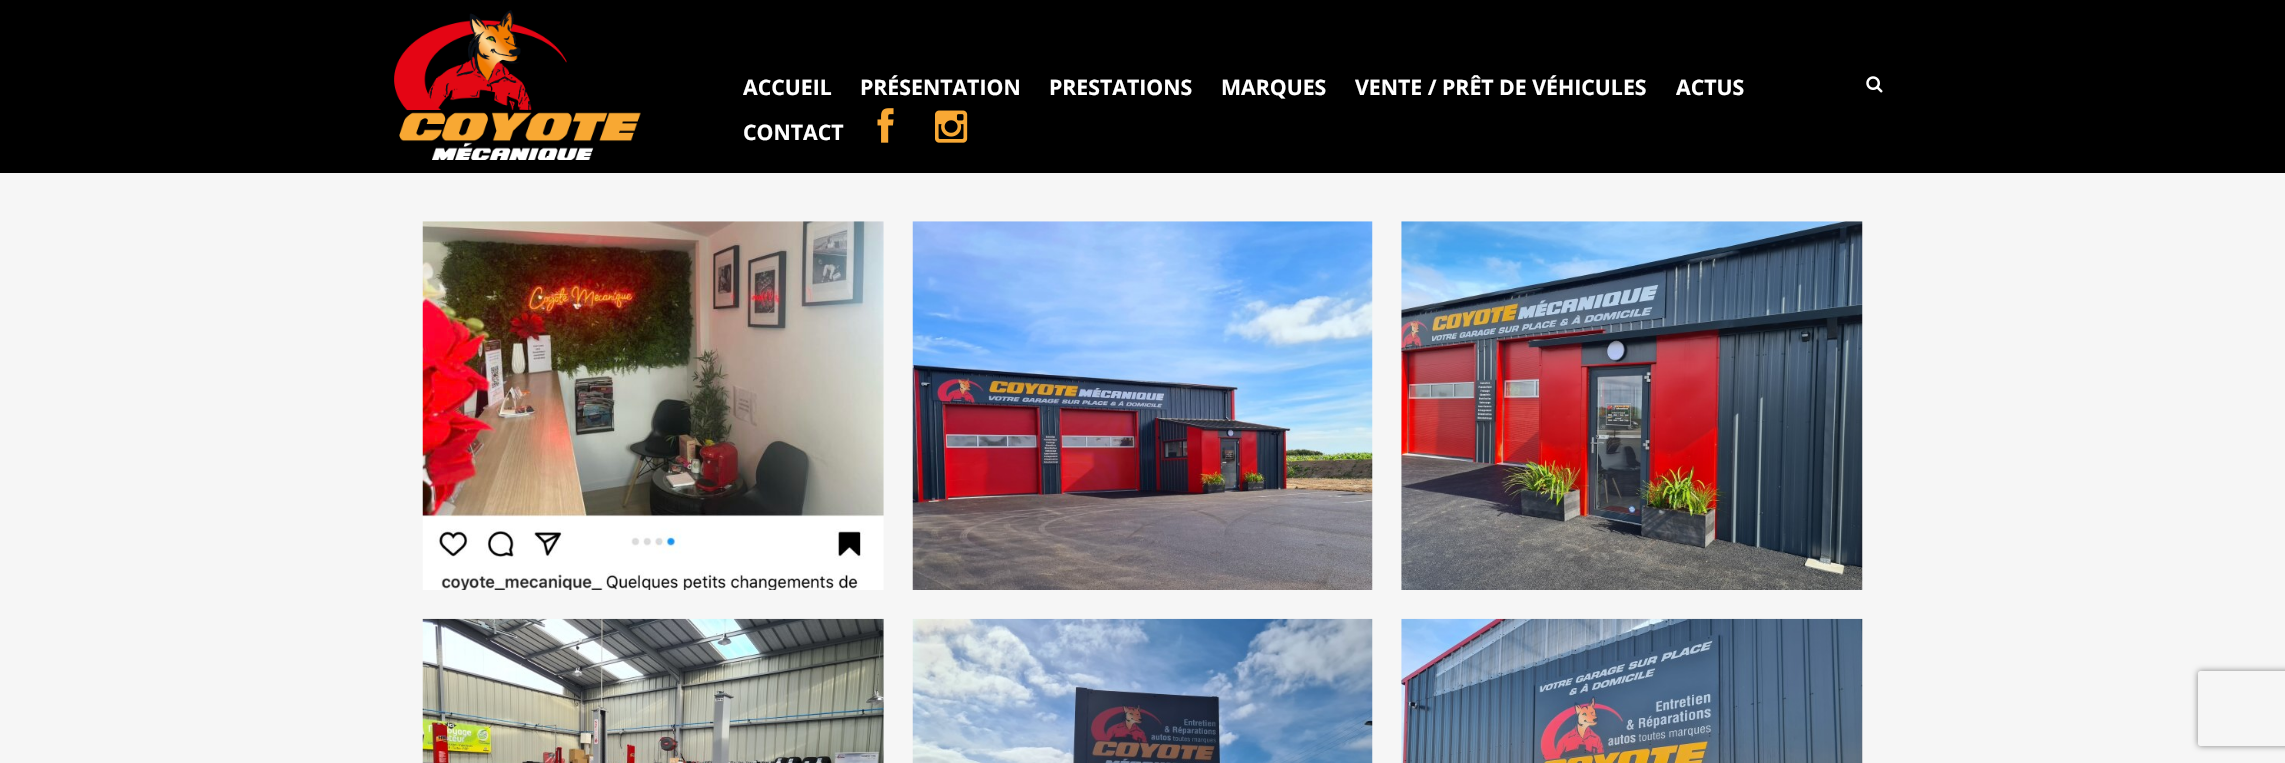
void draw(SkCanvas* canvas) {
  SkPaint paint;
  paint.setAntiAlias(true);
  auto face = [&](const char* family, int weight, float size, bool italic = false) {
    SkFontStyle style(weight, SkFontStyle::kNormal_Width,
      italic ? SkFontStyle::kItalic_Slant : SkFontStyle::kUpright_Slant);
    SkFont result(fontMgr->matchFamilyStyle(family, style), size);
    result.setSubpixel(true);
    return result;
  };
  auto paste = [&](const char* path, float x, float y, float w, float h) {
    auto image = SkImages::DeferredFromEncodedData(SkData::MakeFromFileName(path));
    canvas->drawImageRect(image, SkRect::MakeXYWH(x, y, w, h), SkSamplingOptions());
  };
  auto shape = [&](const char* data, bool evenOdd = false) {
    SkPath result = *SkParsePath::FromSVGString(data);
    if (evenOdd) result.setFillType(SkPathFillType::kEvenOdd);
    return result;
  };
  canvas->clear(0xfff6f6f6);
  paint.setColor(0xff000000);
  canvas->drawRect(SkRect::MakeXYWH(0, 0, 2285, 173), paint);
  paste("img/1.png", 394, 10, 247, 150);
  paste("img/2.png", 877, 108, 17, 35);
  paste("img/3.png", 935, 110, 33, 33);
  paste("img/4.png", 1866, 76, 17, 17);
  paste("img/5.png", 422, 221, 462, 369);
  paste("img/6.png", 912, 221, 461, 369);
  paste("img/7.png", 1401, 221, 462, 369);
  paste("img/8.png", 422, 618, 462, 145);
  paste("img/9.png", 912, 618, 461, 145);
  paste("img/10.png", 1401, 618, 462, 145);
  canvas->save();
  canvas->clipPath(shape("M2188 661H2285V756H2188ZM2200.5 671H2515.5C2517 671 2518 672 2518 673.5V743.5C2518 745 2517 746 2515.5 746H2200.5C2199 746 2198 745 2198 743.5V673.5C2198 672 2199 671 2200.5 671Z", true), true);
  paint.setColor(0xff808080);
  paint.setMaskFilter(SkMaskFilter::MakeBlur(kNormal_SkBlurStyle, 3));
  canvas->drawRoundRect(SkRect::MakeXYWH(2198, 671, 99, 75), 2.5f, 2.5f, paint);
  paint.setMaskFilter(nullptr);
  canvas->restore();
  auto f0 = face("Open Sans", 700, 21.25f);
  paint.setColor(0xffffffff);
  {
    const struct { const char* s; float x, y; } items[] = {
      {"ACCUEIL", 743, 95},
      {"PRÉSENTATION", 860, 95},
      {"PRESTATIONS", 1049, 95},
      {"MARQUES", 1221, 95},
      {"VENTE / PRÊT DE VÉHICULES", 1355, 95},
      {"ACTUS", 1676, 95},
      {"CONTACT", 743, 140},
    };
    for (auto [s, x, y] : items) {
      canvas->drawString(s, x, y, f0, paint);
    }
  }
}
